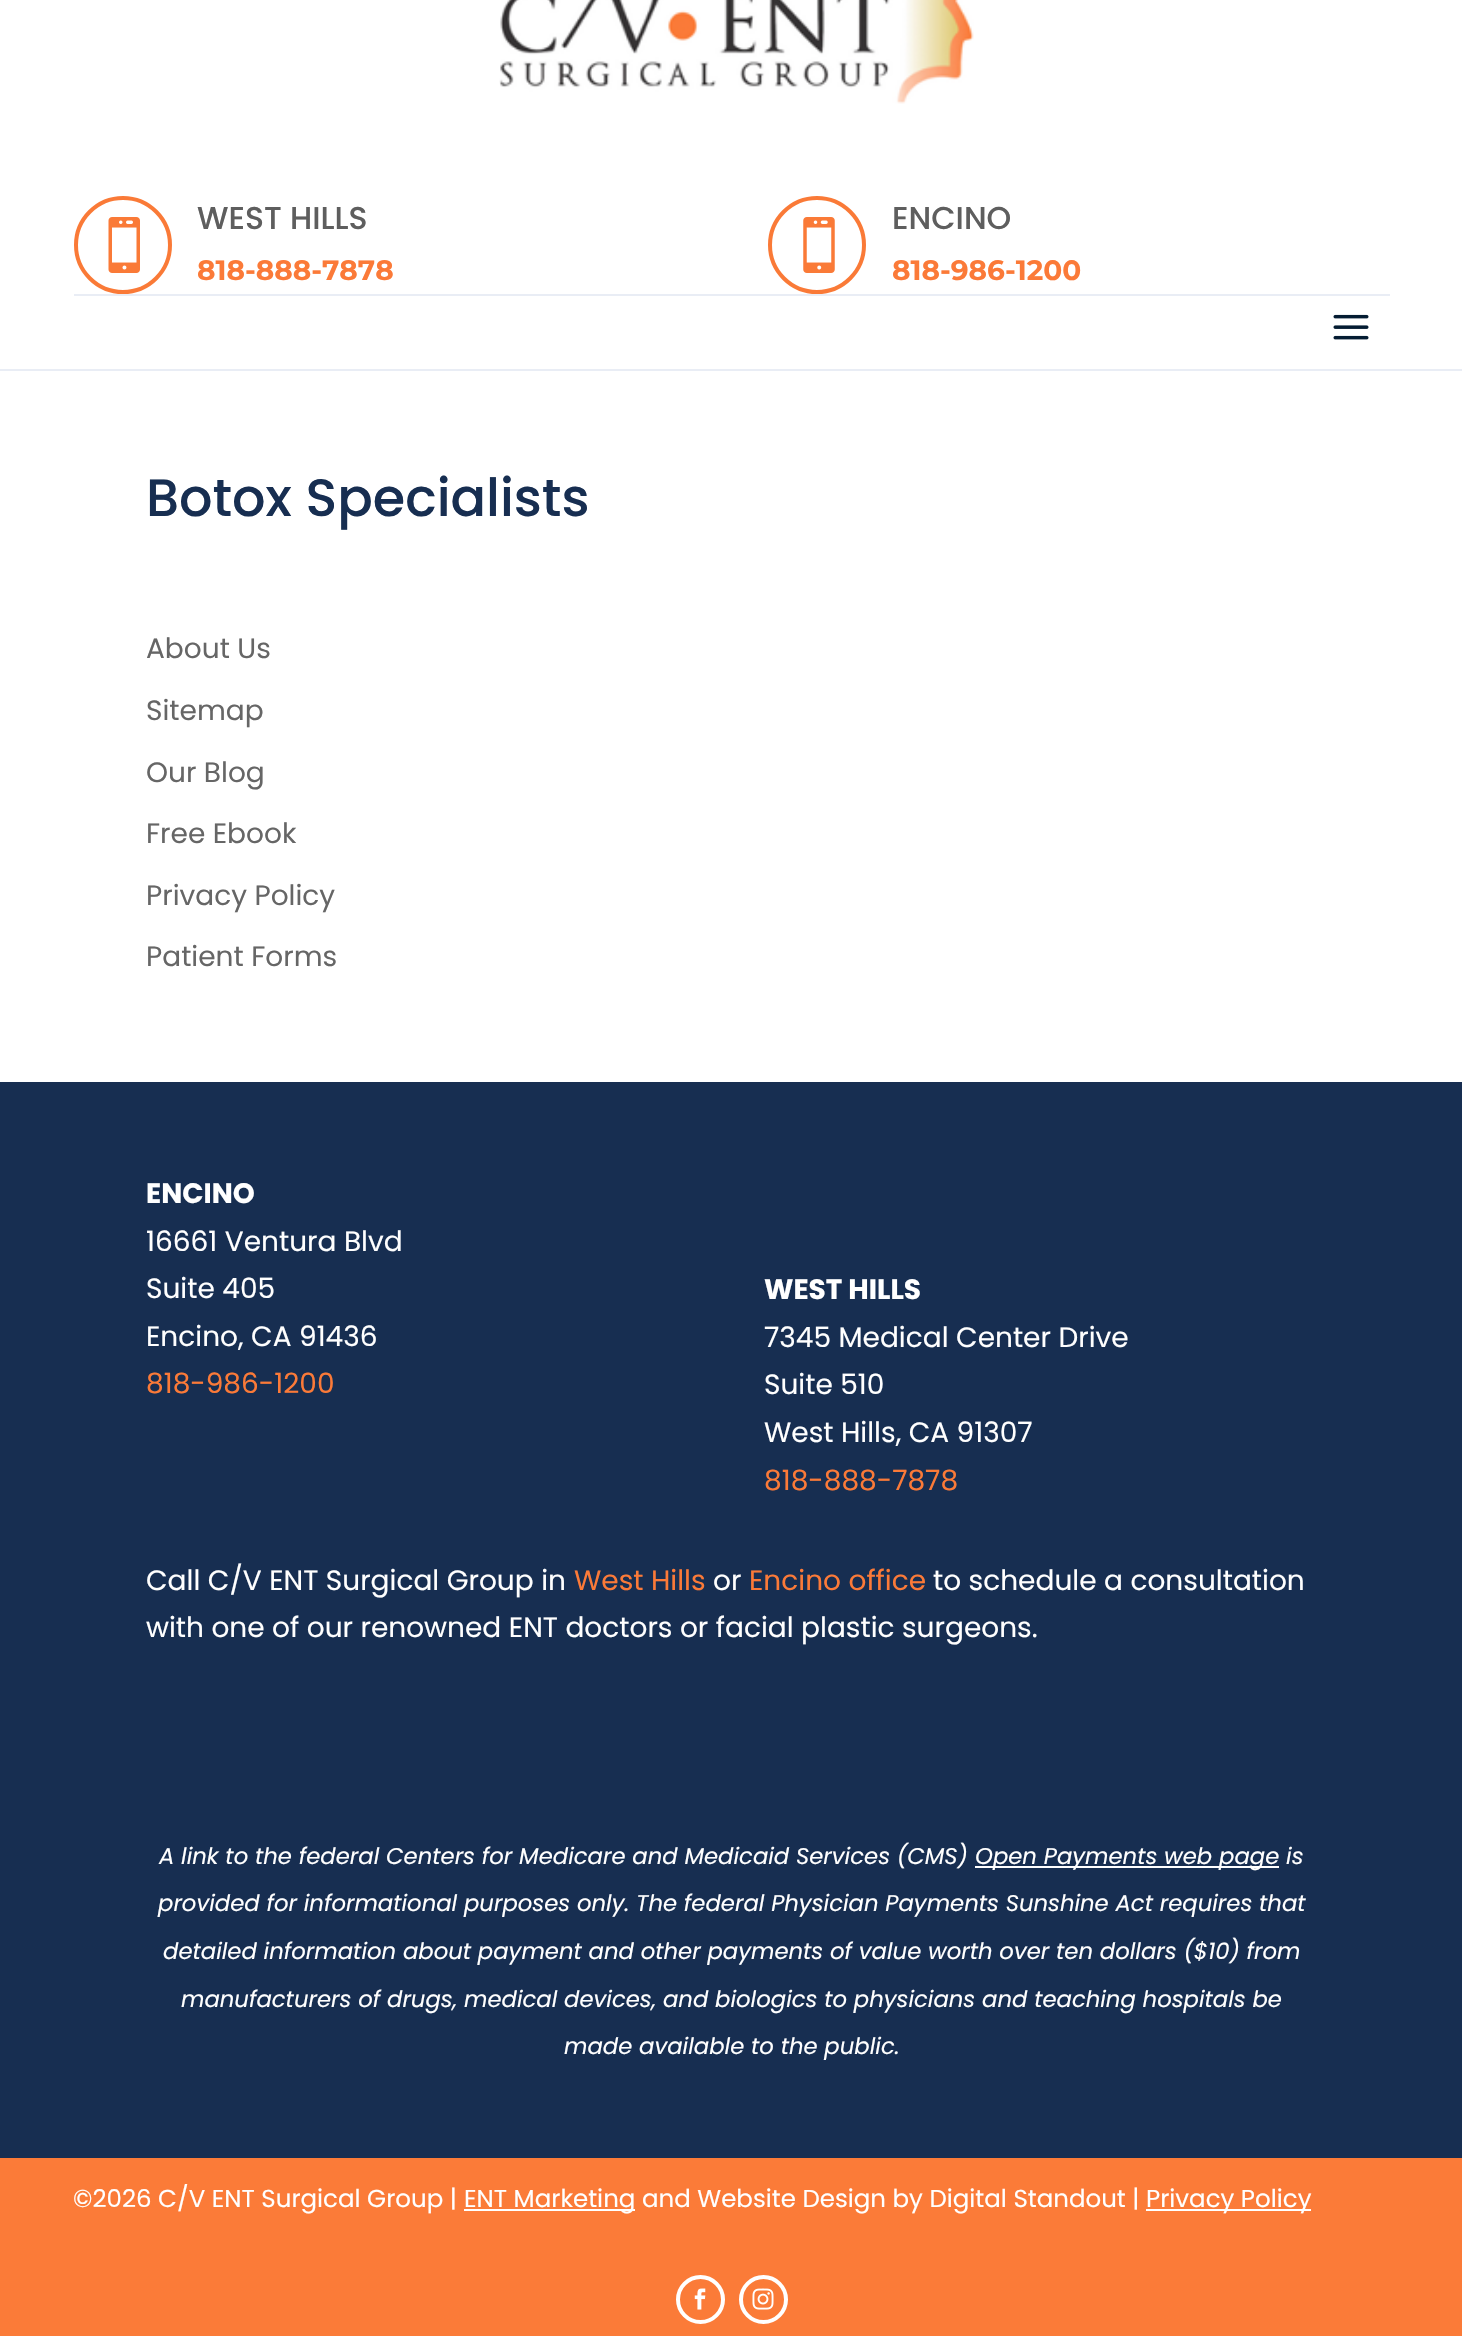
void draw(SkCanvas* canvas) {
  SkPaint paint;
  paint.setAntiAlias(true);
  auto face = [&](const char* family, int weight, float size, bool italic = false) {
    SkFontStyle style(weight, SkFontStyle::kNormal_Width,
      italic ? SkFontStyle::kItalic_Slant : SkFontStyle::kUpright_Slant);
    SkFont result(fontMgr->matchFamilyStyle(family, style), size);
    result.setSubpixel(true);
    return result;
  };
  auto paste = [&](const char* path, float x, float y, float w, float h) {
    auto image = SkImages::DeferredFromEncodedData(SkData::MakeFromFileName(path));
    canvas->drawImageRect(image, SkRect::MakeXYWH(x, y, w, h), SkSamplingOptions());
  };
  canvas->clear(0xffffffff);
  paint.setColor(0xffe9edf5);
  canvas->drawRect(SkRect::MakeXYWH(0, 369, 1462, 2), paint);
  paste("img/1.png", 499, 0, 475, 104);
  paint.setStroke(true);
  paint.setStrokeWidth(4);
  paint.setColor(0xfffa7a37);
  canvas->drawCircle(123, 245, 47, paint);
  paste("img/2.png", 108, 217, 32, 56);
  canvas->drawCircle(817, 245, 47, paint);
  paste("img/3.png", 803, 217, 32, 56);
  paint.setStroke(false);
  paint.setColor(0xffe9edf5);
  canvas->drawRect(SkRect::MakeXYWH(74, 294, 1316, 2), paint);
  paste("img/4.png", 1333, 314, 36, 26);
  {
    const struct { float x, y, w, h; SkColor color; } items[] = {
      {0, 1082, 1462, 1076, 0xff172e51},
      {975, 1866, 304, 2, 0xffffffff},
      {0, 2158, 1462, 178, 0xfffb7b38},
      {464, 2209, 171, 2, 0xffffffff},
      {1146, 2209, 165, 2, 0xffffffff},
    };
    for (auto [x, y, w, h, color] : items) {
      paint.setColor(color);
      canvas->drawRect(SkRect::MakeXYWH(x, y, w, h), paint);
    }
  }
  paint.setStroke(true);
  canvas->drawCircle(700.5f, 2299.5f, 22.5f, paint);
  paste("img/5.png", 694, 2288, 12, 22);
  canvas->drawCircle(763.5f, 2299.5f, 22.5f, paint);
  paste("img/6.png", 752, 2288, 22, 22);
  auto f0 = face("Poppins", 500, 31.5f);
  paint.setStroke(false);
  paint.setColor(0xff5e5e5e);
  canvas->drawString("WEST HILLS", 197, 229, f0, paint);
  auto f1 = face("Montserrat", 700, 28);
  paint.setColor(0xfffb7a38);
  canvas->drawString("818-888-7878", 197, 280, f1, paint);
  paint.setColor(0xff5e5e5e);
  canvas->drawString("ENCINO", 892, 229, f0, paint);
  paint.setColor(0xfffb7a38);
  canvas->drawString("818-986-1200", 892, 280, f1, paint);
  auto f2 = face("Poppins", 500, 52.5f);
  paint.setColor(0xff172e51);
  canvas->drawString("Botox Specialists", 146, 516, f2, paint);
  auto f3 = face("Poppins", 400, 28);
  paint.setColor(0xff666666);
  {
    const struct { const char* s; float x, y; } items[] = {
      {"About Us", 146, 658},
      {"Sitemap", 146, 720},
      {"Our Blog", 146, 782},
      {"Free Ebook", 146, 843},
      {"Privacy Policy", 146, 905},
      {"Patient Forms", 146, 966},
    };
    for (auto [s, x, y] : items) {
      canvas->drawString(s, x, y, f3, paint);
    }
  }
  auto f4 = face("Poppins", 700, 28);
  paint.setColor(0xffffffff);
  canvas->drawString("ENCINO", 146, 1203, f4, paint);
  {
    const struct { const char* s; float x, y; } items[] = {
      {"16661 Ventura Blvd", 146, 1251},
      {"Suite 405", 146, 1298},
      {"Encino, CA 91436", 146, 1346},
    };
    for (auto [s, x, y] : items) {
      canvas->drawString(s, x, y, f3, paint);
    }
  }
  paint.setColor(0xfffb7a38);
  canvas->drawString("818-986-1200", 146, 1393, f3, paint);
  paint.setColor(0xffffffff);
  canvas->drawString("WEST HILLS", 764, 1299, f4, paint);
  {
    const struct { const char* s; float x, y; } items[] = {
      {"7345 Medical Center Drive", 764, 1347},
      {"Suite 510", 764, 1394},
      {"West Hills, CA 91307", 764, 1442},
    };
    for (auto [s, x, y] : items) {
      canvas->drawString(s, x, y, f3, paint);
    }
  }
  paint.setColor(0xfffb7a38);
  canvas->drawString("818-888-7878", 764, 1490, f3, paint);
  paint.setColor(0xffffffff);
  canvas->drawString("Call C/V ENT Surgical Group in", 146, 1590, f3, paint);
  paint.setColor(0xfffb7a38);
  canvas->drawString("West Hills", 574, 1590, f3, paint);
  paint.setColor(0xffffffff);
  canvas->drawString("or", 713, 1590, f3, paint);
  paint.setColor(0xfffb7a38);
  canvas->drawString("Encino office", 749, 1590, f3, paint);
  paint.setColor(0xffffffff);
  canvas->drawString("to schedule a consultation", 933, 1590, f3, paint);
  canvas->drawString("with one of our renowned ENT doctors or facial plastic surgeons.", 146, 1637, f3, paint);
  auto f5 = face("Poppins", 400, 22.75f, true);
  {
    const struct { const char* s; float x, y; } items[] = {
      {"A link to the federal Centers for Medicare and Medicaid Services (CMS)", 159, 1864},
      {"Open Payments web page is", 975, 1864},
      {"provided for informational purposes only. The federal Physician Payments Sunshine Act requires that", 158, 1911},
      {"detailed information about payment and other payments of value worth over ten dollars ($10) from", 163, 1959},
      {"manufacturers of drugs, medical devices, and biologics to physicians and teaching hospitals be", 181, 2007},
      {"made available to the public.", 564, 2054},
    };
    for (auto [s, x, y] : items) {
      canvas->drawString(s, x, y, f5, paint);
    }
  }
  auto f6 = face("Poppins", 400, 24.5f);
  {
    const struct { const char* s; float x, y; } items[] = {
      {"©2026 C/V ENT Surgical Group |", 73, 2207},
      {"ENT Marketing and Website Design by Digital Standout |", 464, 2207},
      {"Privacy Policy", 1146, 2207},
    };
    for (auto [s, x, y] : items) {
      canvas->drawString(s, x, y, f6, paint);
    }
  }
}
